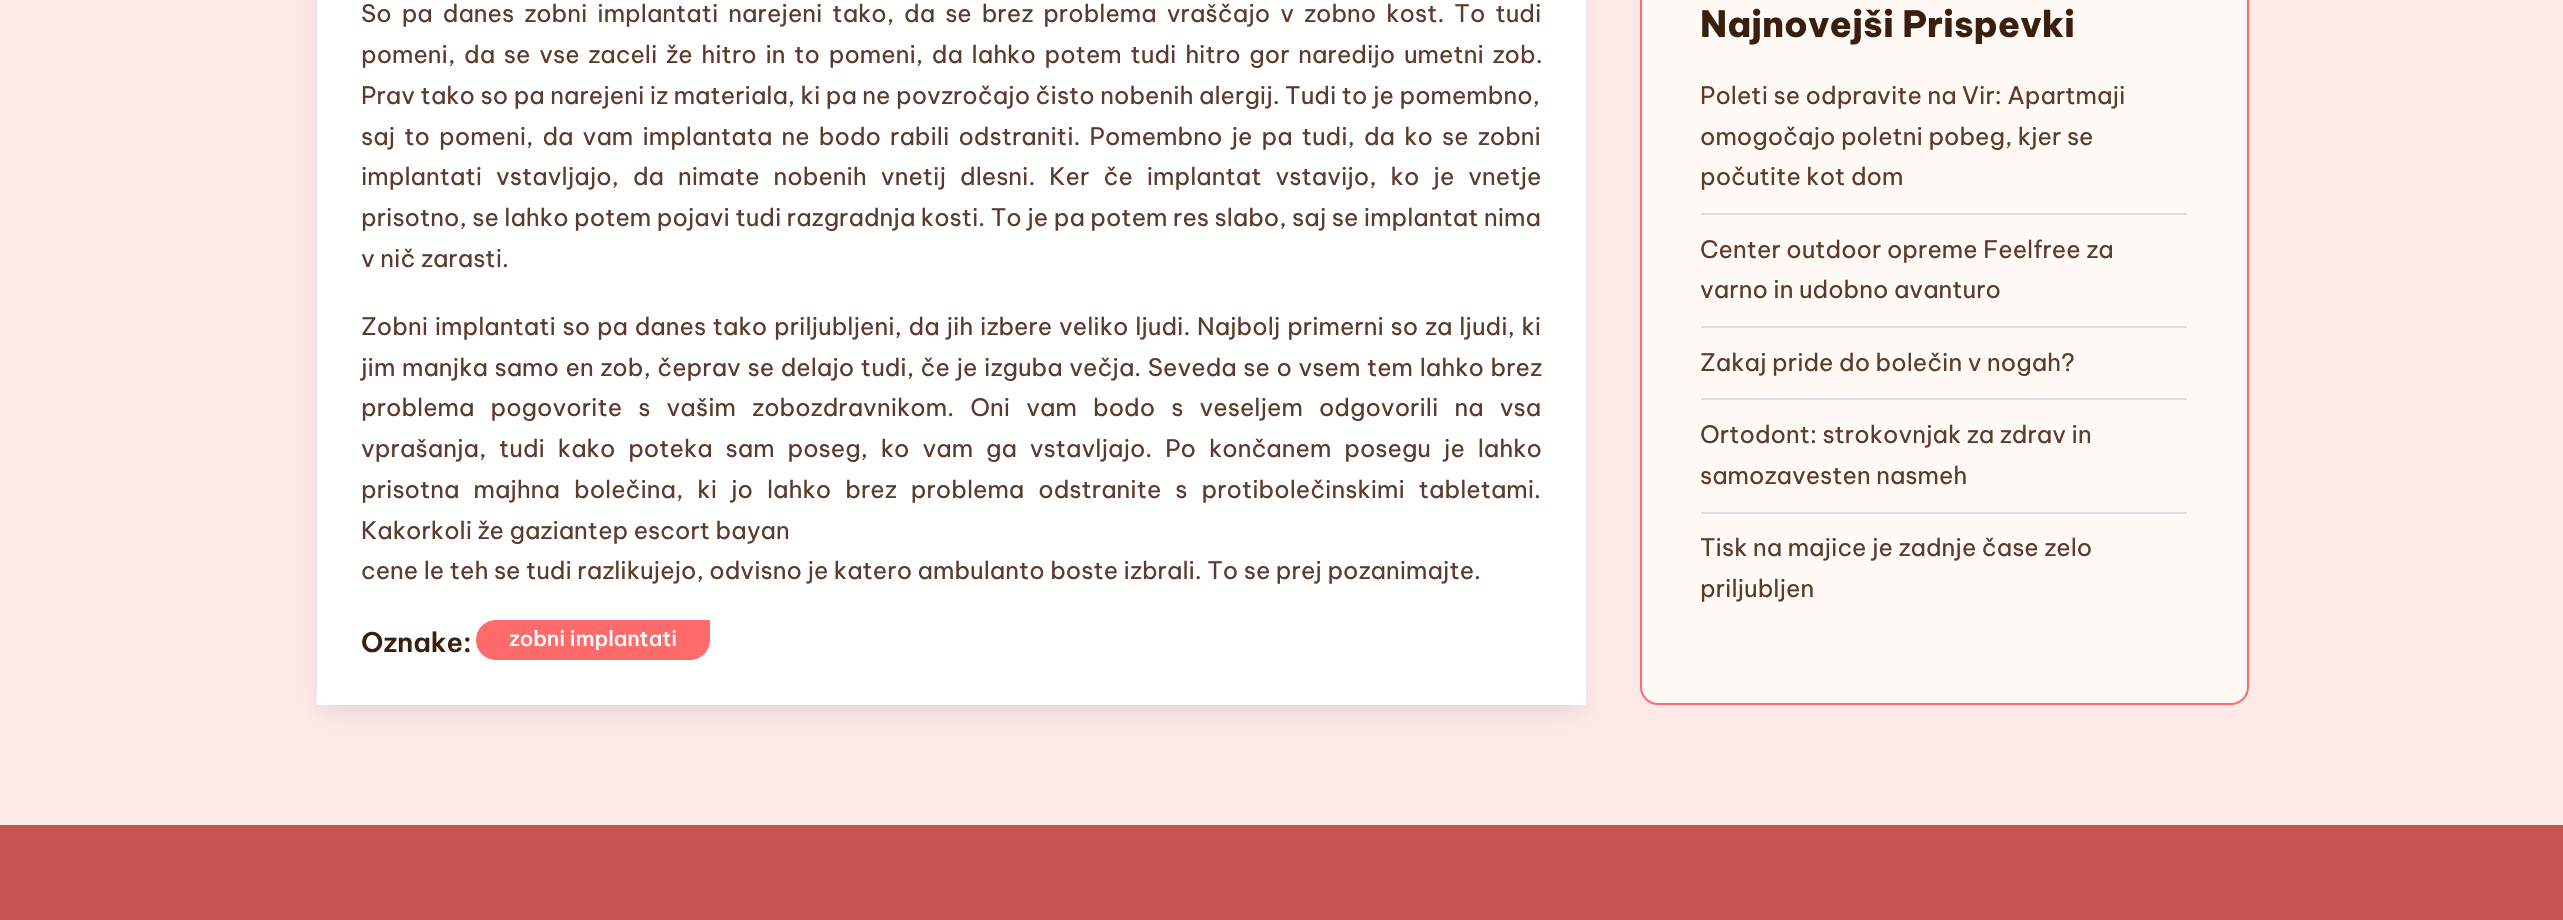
void draw(SkCanvas* canvas) {
  SkPaint paint;
  paint.setAntiAlias(true);
  auto face = [&](const char* family, int weight, float size, bool italic = false) {
    SkFontStyle style(weight, SkFontStyle::kNormal_Width,
      italic ? SkFontStyle::kItalic_Slant : SkFontStyle::kUpright_Slant);
    SkFont result(fontMgr->matchFamilyStyle(family, style), size);
    result.setSubpixel(true);
    return result;
  };
  auto writeSpaced = [&](const char* s, float x, float y, const SkFont& font, const SkPaint& ink, float letter, float word) {
    std::vector<SkGlyphID> glyphs(font.countText(s, strlen(s), SkTextEncoding::kUTF8));
    std::vector<float> xs(glyphs.size());
    font.textToGlyphs(s, strlen(s), SkTextEncoding::kUTF8, glyphs);
    font.getXPos(glyphs, xs, x);
    float extra = 0;
    for (size_t i = 0; i < glyphs.size(); i++) {
      xs[i] += extra;
      extra += letter + word * (glyphs[i] == font.unicharToGlyph(' '));
    }
    canvas->drawTextBlob(SkTextBlob::MakeFromPosHGlyphs(glyphs, xs, y, font), 0, 0, ink);
  };
  auto shape = [&](const char* data, bool evenOdd = false) {
    SkPath result = *SkParsePath::FromSVGString(data);
    if (evenOdd) result.setFillType(SkPathFillType::kEvenOdd);
    return result;
  };
  canvas->clear(0xffffeaea);
  paint.setColor(0x1a000000);
  paint.setMaskFilter(SkMaskFilter::MakeBlur(kNormal_SkBlurStyle, 11));
  canvas->drawRect(SkRect::MakeXYWH(321, -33, 1260, 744), paint);
  paint.setMaskFilter(nullptr);
  paint.setColor(0xffffffff);
  canvas->drawRect(SkRect::MakeXYWH(317, 0, 1269, 705), paint);
  paint.setColor(0xffff6b6b);
  canvas->drawPath(shape("M496 620H710V640C710 651 701 660 690 660H496C485 660 476 651 476 640C476 629 485 620 496 620Z"), paint);
  paint.setColor(0xfffffaf5);
  canvas->drawRoundRect(SkRect::MakeXYWH(1641, -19, 607, 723), 17, 17, paint);
  paint.setStroke(true);
  paint.setStrokeWidth(2);
  paint.setColor(0xffff6b6b);
  canvas->drawRoundRect(SkRect::MakeXYWH(1641, -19, 607, 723), 17, 17, paint);
  paint.setStroke(false);
  {
    const struct { float x, y, w, h; SkColor color; } items[] = {
      {1701, 213, 486, 2, 0xffdedde2},
      {1701, 326, 486, 2, 0xffdedde2},
      {1701, 398, 486, 2, 0xffdedde2},
      {1701, 512, 486, 2, 0xffdedde2},
      {0, 825, 2563, 95, 0xffc75551},
    };
    for (auto [x, y, w, h, color] : items) {
      paint.setColor(color);
      canvas->drawRect(SkRect::MakeXYWH(x, y, w, h), paint);
    }
  }
  auto f0 = face("Be Vietnam Pro", 400, 24);
  paint.setColor(0xff5c3a2e);
  writeSpaced("So pa danes zobni implantati narejeni tako, da se brez problema vraščajo v zobno kost. To tudi", 361, 22, f0, paint, 0, 4.5f);
  writeSpaced("pomeni, da se vse zaceli že hitro in to pomeni, da lahko potem tudi hitro gor naredijo umetni zob.", 361, 63, f0, paint, 0, 3.25f);
  canvas->drawString("Prav tako so pa narejeni iz materiala, ki pa ne povzročajo čisto nobenih alergij. Tudi to je pomembno,", 361, 104, f0, paint);
  writeSpaced("saj to pomeni, da vam implantata ne bodo rabili odstraniti. Pomembno je pa tudi, da ko se zobni", 361, 145, f0, paint, 0, 3.6f);
  writeSpaced("implantati vstavljajo, da nimate nobenih vnetij dlesni. Ker če implantat vstavijo, ko je vnetje", 361, 185, f0, paint, 0, 8.5f);
  canvas->drawString("prisotno, se lahko potem pojavi tudi razgradnja kosti. To je pa potem res slabo, saj se implantat nima", 361, 226, f0, paint);
  canvas->drawString("v nič zarasti.", 361, 267, f0, paint);
  writeSpaced("Zobni implantati so pa danes tako priljubljeni, da jih izbere veliko ljudi. Najbolj primerni so za ljudi, ki", 361, 335, f0, paint, 0, 1.25f);
  writeSpaced("jim manjka samo en zob, čeprav se delajo tudi, če je izguba večja. Seveda se o vsem tem lahko brez", 361, 376, f0, paint, 0, 1.1f);
  writeSpaced("problema pogovorite s vašim zobozdravnikom. Oni vam bodo s veseljem odgovorili na vsa", 361, 416, f0, paint, 0, 10.6f);
  writeSpaced("vprašanja, tudi kako poteka sam poseg, ko vam ga vstavljajo. Po končanem posegu je lahko", 361, 457, f0, paint, 0, 7.4f);
  writeSpaced("prisotna majhna bolečina, ki jo lahko brez problema odstranite s protibolečinskimi tabletami.", 361, 498, f0, paint, 0, 8.5f);
  canvas->drawString("Kakorkoli že gaziantep escort bayan", 361, 539, f0, paint);
  canvas->drawString("cene le teh se tudi razlikujejo, odvisno je katero ambulanto boste izbrali. To se prej pozanimajte.", 361, 579, f0, paint);
  auto f1 = face("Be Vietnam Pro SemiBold", 600, 27);
  paint.setColor(0xff3a1f0f);
  canvas->drawString("Oznake:", 361, 652, f1, paint);
  auto f2 = face("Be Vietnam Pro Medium", 500, 21);
  paint.setColor(0xffffffff);
  canvas->drawString("zobni implantati", 509, 646, f2, paint);
  auto f3 = face("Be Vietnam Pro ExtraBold", 800, 36);
  paint.setColor(0xff3a1f0f);
  canvas->drawString("Najnovejši Prispevki", 1700, 37, f3, paint);
  paint.setColor(0xff5c3a2e);
  {
    const struct { const char* s; float x, y; } items[] = {
      {"Poleti se odpravite na Vir: Apartmaji", 1700, 104},
      {"omogočajo poletni pobeg, kjer se", 1700, 145},
      {"počutite kot dom", 1700, 185},
      {"Center outdoor opreme Feelfree za", 1700, 258},
      {"varno in udobno avanturo", 1700, 298},
      {"Zakaj pride do bolečin v nogah?", 1700, 371},
      {"Ortodont: strokovnjak za zdrav in", 1700, 443},
      {"samozavesten nasmeh", 1700, 484},
      {"Tisk na majice je zadnje čase zelo", 1700, 556},
      {"priljubljen", 1700, 597},
    };
    for (auto [s, x, y] : items) {
      canvas->drawString(s, x, y, f0, paint);
    }
  }
}
